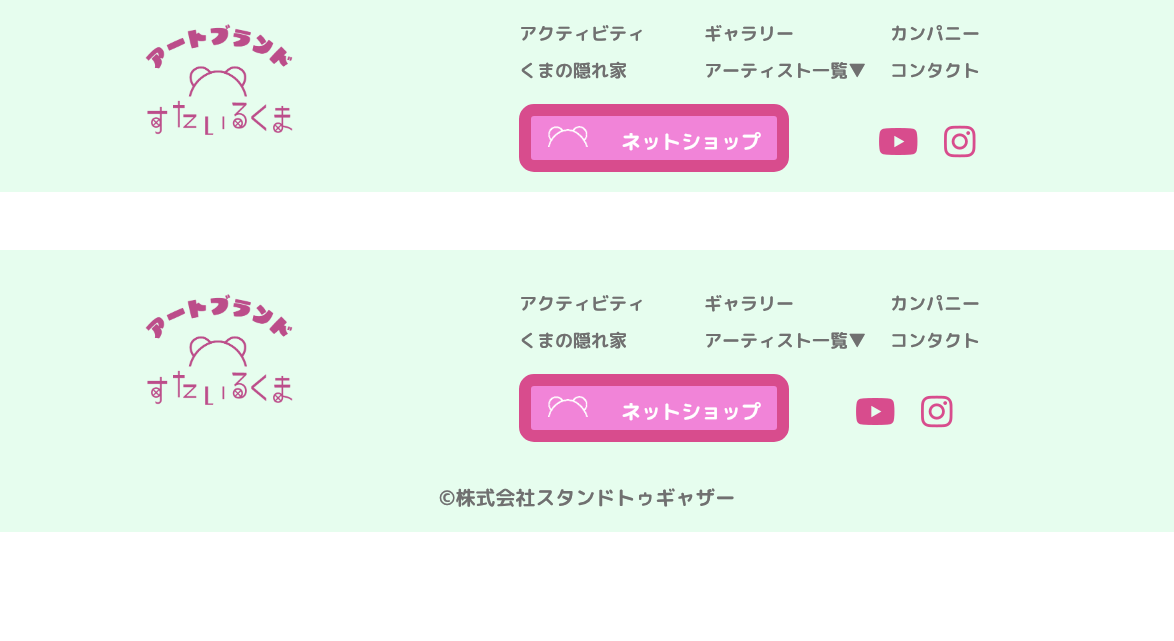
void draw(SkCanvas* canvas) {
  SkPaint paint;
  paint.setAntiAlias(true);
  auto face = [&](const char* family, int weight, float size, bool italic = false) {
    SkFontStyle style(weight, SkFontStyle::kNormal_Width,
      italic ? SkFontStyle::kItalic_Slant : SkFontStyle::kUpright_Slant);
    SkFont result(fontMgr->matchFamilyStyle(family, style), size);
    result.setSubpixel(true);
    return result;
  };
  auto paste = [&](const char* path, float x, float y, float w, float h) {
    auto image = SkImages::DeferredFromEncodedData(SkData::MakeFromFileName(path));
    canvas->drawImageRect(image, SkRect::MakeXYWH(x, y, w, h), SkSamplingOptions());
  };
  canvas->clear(0xffffffff);
  paint.setColor(0xffe6fdee);
  canvas->drawRect(SkRect::MakeXYWH(0, 0, 1174, 192), paint);
  paste("img/1.png", 145, 24, 148, 111);
  paint.setColor(0xfff184d8);
  canvas->drawRoundRect(SkRect::MakeXYWH(525, 110, 258, 56), 9, 9, paint);
  paint.setStroke(true);
  paint.setStrokeWidth(12);
  paint.setColor(0xffd84c8d);
  canvas->drawRoundRect(SkRect::MakeXYWH(525, 110, 258, 56), 9, 9, paint);
  paste("img/2.png", 548, 126, 40, 21);
  paste("img/3.png", 879, 128, 39, 27);
  paste("img/4.png", 944, 125, 32, 33);
  paint.setStroke(false);
  paint.setColor(0xffe6fdee);
  canvas->drawRect(SkRect::MakeXYWH(0, 250, 1174, 282), paint);
  paste("img/1.png", 145, 294, 148, 111);
  paint.setColor(0xfff184d8);
  canvas->drawRoundRect(SkRect::MakeXYWH(525, 380, 258, 56), 9, 9, paint);
  paint.setStroke(true);
  paint.setColor(0xffd84c8d);
  canvas->drawRoundRect(SkRect::MakeXYWH(525, 380, 258, 56), 9, 9, paint);
  paste("img/5.png", 548, 396, 40, 21);
  paste("img/3.png", 856, 398, 39, 27);
  paste("img/4.png", 921, 395, 32, 33);
  auto f0 = face("Rounded Mplus 1c Bold", 700, 18);
  paint.setStroke(false);
  paint.setColor(0xff707070);
  {
    const struct { const char* s; float x, y; } items[] = {
      {"アクティビティ", 519, 40},
      {"ギャラリー", 704, 40},
      {"カンパニー", 890, 40},
      {"くまの隠れ家", 519, 77},
      {"アーティスト一覧▼", 704, 77},
      {"コンタクト", 890, 77},
    };
    for (auto [s, x, y] : items) {
      canvas->drawString(s, x, y, f0, paint);
    }
  }
  auto f1 = face("Rounded Mplus 1c Bold", 700, 20);
  paint.setColor(0xffffffff);
  canvas->drawString("ネットショップ", 621, 149, f1, paint);
  paint.setColor(0xff707070);
  {
    const struct { const char* s; float x, y; } items[] = {
      {"アクティビティ", 519, 310},
      {"ギャラリー", 704, 310},
      {"カンパニー", 890, 310},
      {"くまの隠れ家", 519, 347},
      {"アーティスト一覧▼", 704, 347},
      {"コンタクト", 890, 347},
    };
    for (auto [s, x, y] : items) {
      canvas->drawString(s, x, y, f0, paint);
    }
  }
  paint.setColor(0xffffffff);
  canvas->drawString("ネットショップ", 621, 419, f1, paint);
  paint.setColor(0xff707070);
  canvas->drawString("©株式会社スタンドトゥギャザー", 439, 505, f1, paint);
}
